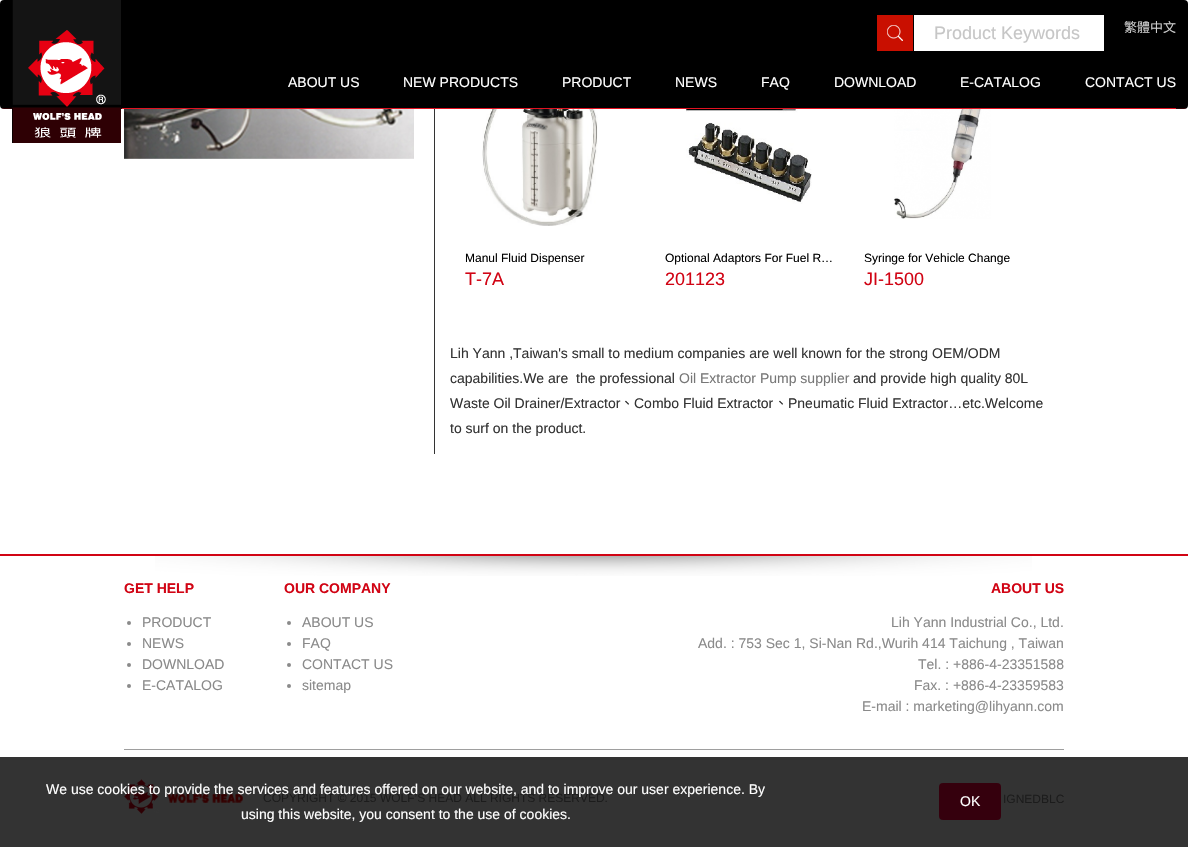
void draw(SkCanvas* canvas) {
  SkPaint paint;
  paint.setAntiAlias(true);
  auto face = [&](const char* family, int weight, float size, bool italic = false) {
    SkFontStyle style(weight, SkFontStyle::kNormal_Width,
      italic ? SkFontStyle::kItalic_Slant : SkFontStyle::kUpright_Slant);
    SkFont result(fontMgr->matchFamilyStyle(family, style), size);
    result.setSubpixel(true);
    return result;
  };
  auto paste = [&](const char* path, float x, float y, float w, float h) {
    auto image = SkImages::DeferredFromEncodedData(SkData::MakeFromFileName(path));
    canvas->drawImageRect(image, SkRect::MakeXYWH(x, y, w, h), SkSamplingOptions());
  };
  canvas->clear(0xffffffff);
  paint.setColor(0xff333333);
  canvas->drawRect(SkRect::MakeXYWH(0, 757, 1188, 90), paint);
  paint.setColor(0xff000000);
  canvas->drawRoundRect(SkRect::MakeXYWH(0, 0, 1188, 109), 4, 4, paint);
  paint.setColor(0x33e11221);
  canvas->drawRect(SkRect::MakeXYWH(2, 108, 1184, 1), paint);
  paste("img/1.png", 12, 0, 109, 143);
  paint.setColor(0xffe11221);
  canvas->drawRect(SkRect::MakeXYWH(122, 108, 1054, 1), paint);
  paint.setColor(0xffc90f00);
  canvas->drawRect(SkRect::MakeXYWH(877, 15, 36, 36), paint);
  paste("img/2.png", 887, 25, 16, 16);
  paint.setColor(0xffffffff);
  canvas->drawRect(SkRect::MakeXYWH(914, 15, 190, 36), paint);
  paste("img/3.png", 124, 109, 290, 50);
  paint.setColor(0xff333333);
  canvas->drawRect(SkRect::MakeXYWH(434, 109, 1, 345), paint);
  paste("img/4.png", 482, 109, 116, 117);
  paste("img/5.png", 686, 109, 126, 95);
  paste("img/6.png", 894, 109, 97, 110);
  paste("img/7.png", 155, 556, 877, 20);
  paint.setColor(0xffd10414);
  canvas->drawRect(SkRect::MakeXYWH(0, 554, 1188, 2), paint);
  paint.setColor(0xff8a8a8a);
  canvas->drawCircle(129, 623, 2, paint);
  canvas->drawCircle(129, 644, 2, paint);
  canvas->drawCircle(129, 665, 2, paint);
  canvas->drawCircle(129, 686, 2, paint);
  canvas->drawCircle(289, 623, 2, paint);
  canvas->drawCircle(289, 644, 2, paint);
  canvas->drawCircle(289, 665, 2, paint);
  canvas->drawCircle(289, 686, 2, paint);
  paint.setColor(0xff9e9e9e);
  canvas->drawRect(SkRect::MakeXYWH(124, 749, 940, 1), paint);
  paste("img/8.png", 124, 779, 119, 35);
  paint.setColor(0xff35000d);
  canvas->drawRoundRect(SkRect::MakeXYWH(939, 783, 62, 37), 4, 4, paint);
  auto f0 = face("Liberation Sans", 400, 18);
  paint.setColor(0xffc6c6c6);
  canvas->drawString("Product Keywords", 934, 39, f0, paint);
  auto f1 = face("Noto Sans CJK TC", 400, 13);
  paint.setColor(0xffcccccc);
  canvas->drawString("繁體中文", 1124, 32, f1, paint);
  auto f2 = face("Liberation Sans", 400, 14);
  paint.setColor(0xffffffff);
  {
    const struct { const char* s; float x, y; } items[] = {
      {"ABOUT US", 288, 87},
      {"NEW PRODUCTS", 403, 87},
      {"PRODUCT", 562, 87},
      {"NEWS", 675, 87},
      {"FAQ", 761, 87},
      {"DOWNLOAD", 834, 87},
      {"E-CATALOG", 960, 87},
      {"CONTACT US", 1085, 87},
    };
    for (auto [s, x, y] : items) {
      canvas->drawString(s, x, y, f2, paint);
    }
  }
  auto f3 = face("Liberation Sans", 400, 12);
  paint.setColor(0xff000000);
  canvas->drawString("Manul Fluid Dispenser", 465, 262, f3, paint);
  paint.setColor(0xffd10414);
  canvas->drawString("T-7A", 465, 285, f0, paint);
  paint.setColor(0xff000000);
  canvas->drawString("Optional Adaptors For Fuel R…", 665, 262, f3, paint);
  paint.setColor(0xffd10414);
  canvas->drawString("201123", 665, 285, f0, paint);
  paint.setColor(0xff000000);
  canvas->drawString("Syringe for Vehicle Change", 864, 262, f3, paint);
  paint.setColor(0xffd10414);
  canvas->drawString("JI-1500", 864, 285, f0, paint);
  paint.setColor(0xff333333);
  canvas->drawString("Lih Yann ,Taiwan's small to medium companies are well known for the strong OEM/ODM", 450, 358, f2, paint);
  canvas->drawString("capabilities.We are  the professional", 450, 383, f2, paint);
  paint.setColor(0xff777777);
  canvas->drawString("Oil Extractor Pump supplier", 679, 383, f2, paint);
  paint.setColor(0xff333333);
  canvas->drawString("and provide high quality 80L", 853, 383, f2, paint);
  canvas->drawString("Waste Oil Drainer/Extractor", 450, 408, f2, paint);
  auto f4 = face("Noto Sans CJK TC", 400, 14);
  canvas->drawString("、", 620, 408, f4, paint);
  canvas->drawString("Combo Fluid Extractor", 634, 408, f2, paint);
  canvas->drawString("、", 774, 408, f4, paint);
  canvas->drawString("Pneumatic Fluid Extractor…etc.Welcome", 788, 408, f2, paint);
  canvas->drawString("to surf on the product.", 450, 433, f2, paint);
  auto f5 = face("Liberation Sans", 700, 14);
  paint.setColor(0xffd10414);
  canvas->drawString("GET HELP", 124, 593, f5, paint);
  paint.setColor(0xff8a8a8a);
  {
    const struct { const char* s; float x, y; } items[] = {
      {"PRODUCT", 142, 627},
      {"NEWS", 142, 648},
      {"DOWNLOAD", 142, 669},
      {"E-CATALOG", 142, 690},
    };
    for (auto [s, x, y] : items) {
      canvas->drawString(s, x, y, f2, paint);
    }
  }
  paint.setColor(0xffd10414);
  canvas->drawString("OUR COMPANY", 284, 593, f5, paint);
  paint.setColor(0xff8a8a8a);
  {
    const struct { const char* s; float x, y; } items[] = {
      {"ABOUT US", 302, 627},
      {"FAQ", 302, 648},
      {"CONTACT US", 302, 669},
      {"sitemap", 302, 690},
    };
    for (auto [s, x, y] : items) {
      canvas->drawString(s, x, y, f2, paint);
    }
  }
  paint.setColor(0xffd10414);
  canvas->drawString("ABOUT US", 991, 593, f5, paint);
  paint.setColor(0xff8a8a8a);
  {
    const struct { const char* s; float x, y; } items[] = {
      {"Lih Yann Industrial Co., Ltd.", 891, 627},
      {"Add. : 753 Sec 1, Si-Nan Rd.,Wurih 414 Taichung , Taiwan", 698, 648},
      {"Tel. : +886-4-23351588", 918, 669},
      {"Fax. : +886-4-23359583", 914, 690},
      {"E-mail : marketing@lihyann.com", 862, 711},
    };
    for (auto [s, x, y] : items) {
      canvas->drawString(s, x, y, f2, paint);
    }
  }
  paint.setColor(0xff1c1c1c);
  canvas->drawString("COPYRIGHT © 2015 WOLF’S HEAD ALL RIGHTS RESERVED.", 263, 802, f3, paint);
  canvas->drawString("IGNEDBLC", 1003, 803, f3, paint);
  paint.setColor(0xffffffff);
  {
    const struct { const char* s; float x, y; } items[] = {
      {"We use cookies to provide the services and features offered on our website, and to improve our user experience. By", 46, 794},
      {"using this website, you consent to the use of cookies.", 241, 819},
      {"OK", 960, 806},
    };
    for (auto [s, x, y] : items) {
      canvas->drawString(s, x, y, f2, paint);
    }
  }
}
